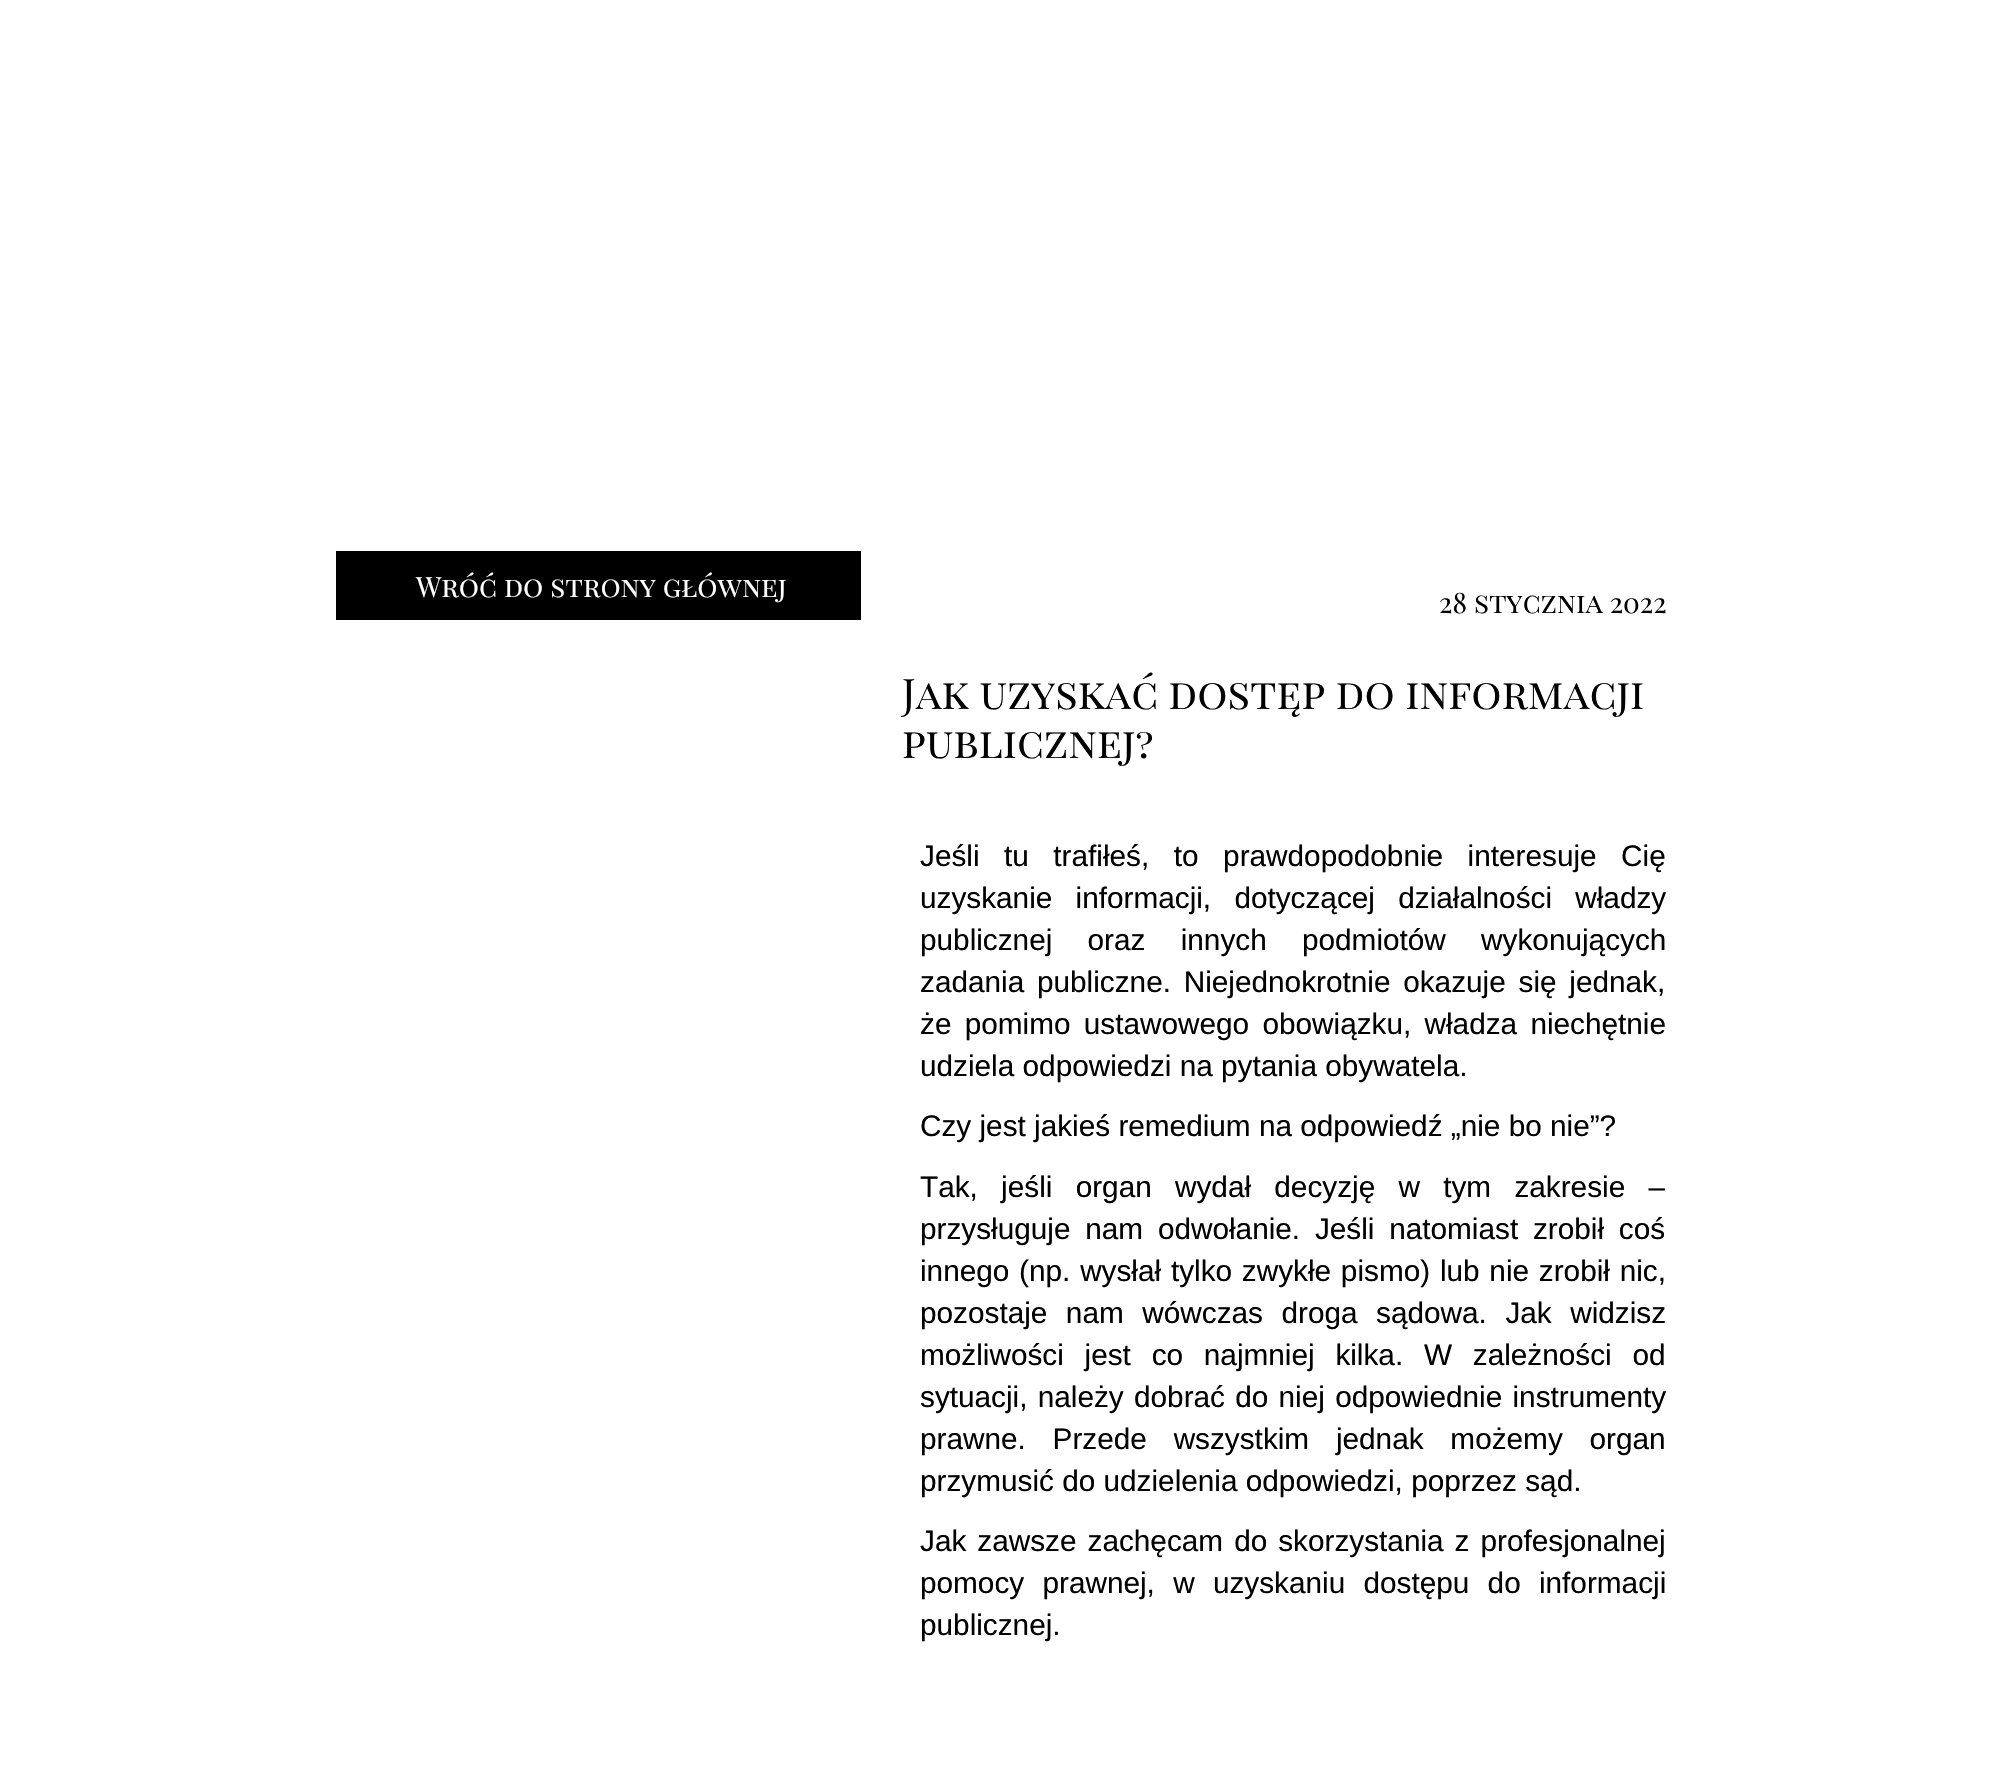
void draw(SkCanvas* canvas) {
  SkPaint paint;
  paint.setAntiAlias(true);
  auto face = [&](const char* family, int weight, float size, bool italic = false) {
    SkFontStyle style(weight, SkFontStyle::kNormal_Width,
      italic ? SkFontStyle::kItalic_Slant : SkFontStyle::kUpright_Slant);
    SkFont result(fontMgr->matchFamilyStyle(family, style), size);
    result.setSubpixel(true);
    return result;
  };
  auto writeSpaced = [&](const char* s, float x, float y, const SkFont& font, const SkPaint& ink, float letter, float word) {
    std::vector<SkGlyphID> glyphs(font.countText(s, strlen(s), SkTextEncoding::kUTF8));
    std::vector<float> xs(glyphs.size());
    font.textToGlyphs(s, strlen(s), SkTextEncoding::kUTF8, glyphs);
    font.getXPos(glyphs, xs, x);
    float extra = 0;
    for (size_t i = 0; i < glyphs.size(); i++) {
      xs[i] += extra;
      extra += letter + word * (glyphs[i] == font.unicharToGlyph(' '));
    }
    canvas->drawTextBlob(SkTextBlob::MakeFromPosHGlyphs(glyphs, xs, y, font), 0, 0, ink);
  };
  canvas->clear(0xffffffff);
  paint.setColor(0xff000000);
  canvas->drawRect(SkRect::MakeXYWH(336, 551, 525, 69), paint);
  auto f0 = face("Playfair Display SC", 400, 28);
  paint.setColor(0xffffffff);
  canvas->drawString("Wróć do strony głównej", 416, 597, f0, paint);
  paint.setColor(0xff000000);
  canvas->drawString("28 stycznia 2022", 1439, 613, f0, paint);
  auto f1 = face("Playfair Display SC", 400, 42);
  canvas->drawString("Jak uzyskać dostęp do informacji", 902, 709, f1, paint);
  canvas->drawString("publicznej?", 902, 758, f1, paint);
  auto f2 = face("Liberation Sans", 400, 29.75f);
  writeSpaced("Jeśli tu trafiłeś, to prawdopodobnie interesuje Cię", 920, 866, f2, paint, 0, 16.25f);
  writeSpaced("uzyskanie informacji, dotyczącej działalności władzy", 920, 908, f2, paint, 0, 15);
  writeSpaced("publicznej oraz innych podmiotów wykonujących", 920, 950, f2, paint, 0, 27);
  writeSpaced("zadania publiczne. Niejednokrotnie okazuje się jednak,", 920, 992, f2, paint, 0, 4.5f);
  writeSpaced("że pomimo ustawowego obowiązku, władza niechętnie", 920, 1034, f2, paint, 0, 5);
  canvas->drawString("udziela odpowiedzi na pytania obywatela.", 920, 1076, f2, paint);
  canvas->drawString("Czy jest jakieś remedium na odpowiedź „nie bo nie”?", 920, 1136, f2, paint);
  writeSpaced("Tak, jeśli organ wydał decyzję w tym zakresie –", 920, 1197, f2, paint, 0, 15);
  writeSpaced("przysługuje nam odwołanie. Jeśli natomiast zrobił coś", 920, 1239, f2, paint, 0, 6.5f);
  writeSpaced("innego (np. wysłał tylko zwykłe pismo) lub nie zrobił nic,", 920, 1281, f2, paint, 0, 1.5f);
  writeSpaced("pozostaje nam wówczas droga sądowa. Jak widzisz", 920, 1323, f2, paint, 0, 10.25f);
  writeSpaced("możliwości jest co najmniej kilka. W zależności od", 920, 1365, f2, paint, 0, 12.5f);
  writeSpaced("sytuacji, należy dobrać do niej odpowiednie instrumenty", 920, 1407, f2, paint, 0, 2);
  writeSpaced("prawne. Przede wszystkim jednak możemy organ", 920, 1449, f2, paint, 0, 18.5f);
  canvas->drawString("przymusić do udzielenia odpowiedzi, poprzez sąd.", 920, 1491, f2, paint);
  writeSpaced("Jak zawsze zachęcam do skorzystania z profesjonalnej", 920, 1551, f2, paint, 0, 2.75f);
  writeSpaced("pomocy prawnej, w uzyskaniu dostępu do informacji", 920, 1593, f2, paint, 0, 10);
  canvas->drawString("publicznej.", 920, 1635, f2, paint);
}
